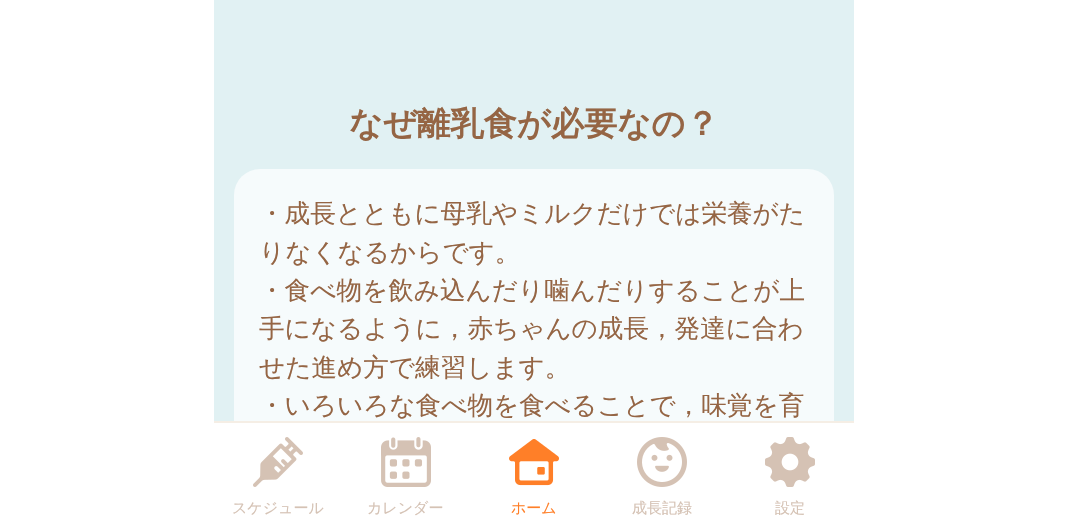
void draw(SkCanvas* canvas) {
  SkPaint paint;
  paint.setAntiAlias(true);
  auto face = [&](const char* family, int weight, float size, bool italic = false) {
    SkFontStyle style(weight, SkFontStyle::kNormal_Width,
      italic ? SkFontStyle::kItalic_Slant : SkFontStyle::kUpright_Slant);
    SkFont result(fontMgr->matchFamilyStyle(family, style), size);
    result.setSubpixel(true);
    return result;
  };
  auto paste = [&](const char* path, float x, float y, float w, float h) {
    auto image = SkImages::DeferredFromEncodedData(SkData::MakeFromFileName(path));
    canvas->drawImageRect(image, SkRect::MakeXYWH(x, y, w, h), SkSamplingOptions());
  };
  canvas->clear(0xffffffff);
  paint.setColor(0xffe1f1f3);
  canvas->drawRect(SkRect::MakeXYWH(214, 0, 640, 421), paint);
  paint.setColor(0xfff6fbfc);
  canvas->drawRoundRect(SkRect::MakeXYWH(234, 169, 600, 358), 26, 26, paint);
  paint.setColor(0xfff5eee5);
  canvas->drawRect(SkRect::MakeXYWH(214, 421, 640, 2), paint);
  paint.setColor(0xffffffff);
  canvas->drawRect(SkRect::MakeXYWH(234, 423, 600, 100), paint);
  paste("img/1.png", 253, 437, 50, 50);
  paste("img/2.png", 381, 437, 50, 50);
  paste("img/3.png", 509, 439, 50, 47);
  paste("img/4.png", 637, 437, 50, 50);
  paste("img/5.png", 765, 437, 50, 50);
  auto f0 = face("WenQuanYi Zen Hei", 700, 33.25f);
  paint.setColor(0xff956544);
  canvas->drawString("なぜ離乳食が必要なの？", 349, 135, f0, paint);
  auto f1 = face("WenQuanYi Zen Hei", 500, 25.6f);
  {
    const struct { const char* s; float x, y; } items[] = {
      {"・成長とともに母乳やミルクだけでは栄養がた", 259, 222},
      {"りなくなるからです。", 259, 261},
      {"・食べ物を飲み込んだり噛んだりすることが上", 259, 299},
      {"手になるように，赤ちゃんの成長，発達に合わ", 259, 337},
      {"せた進め方で練習します。", 259, 376},
      {"・いろいろな食べ物を食べることで，味覚を育", 259, 414},
    };
    for (auto [s, x, y] : items) {
      canvas->drawString(s, x, y, f1, paint);
    }
  }
  auto f2 = face("WenQuanYi Zen Hei", 500, 15);
  paint.setColor(0xffd5c2b4);
  canvas->drawString("スケジュール", 232, 513, f2, paint);
  canvas->drawString("カレンダー", 367, 513, f2, paint);
  paint.setColor(0xffff7f28);
  canvas->drawString("ホーム", 511, 513, f2, paint);
  paint.setColor(0xffd5c2b4);
  canvas->drawString("成長記録", 632, 513, f2, paint);
  canvas->drawString("設定", 775, 513, f2, paint);
}
